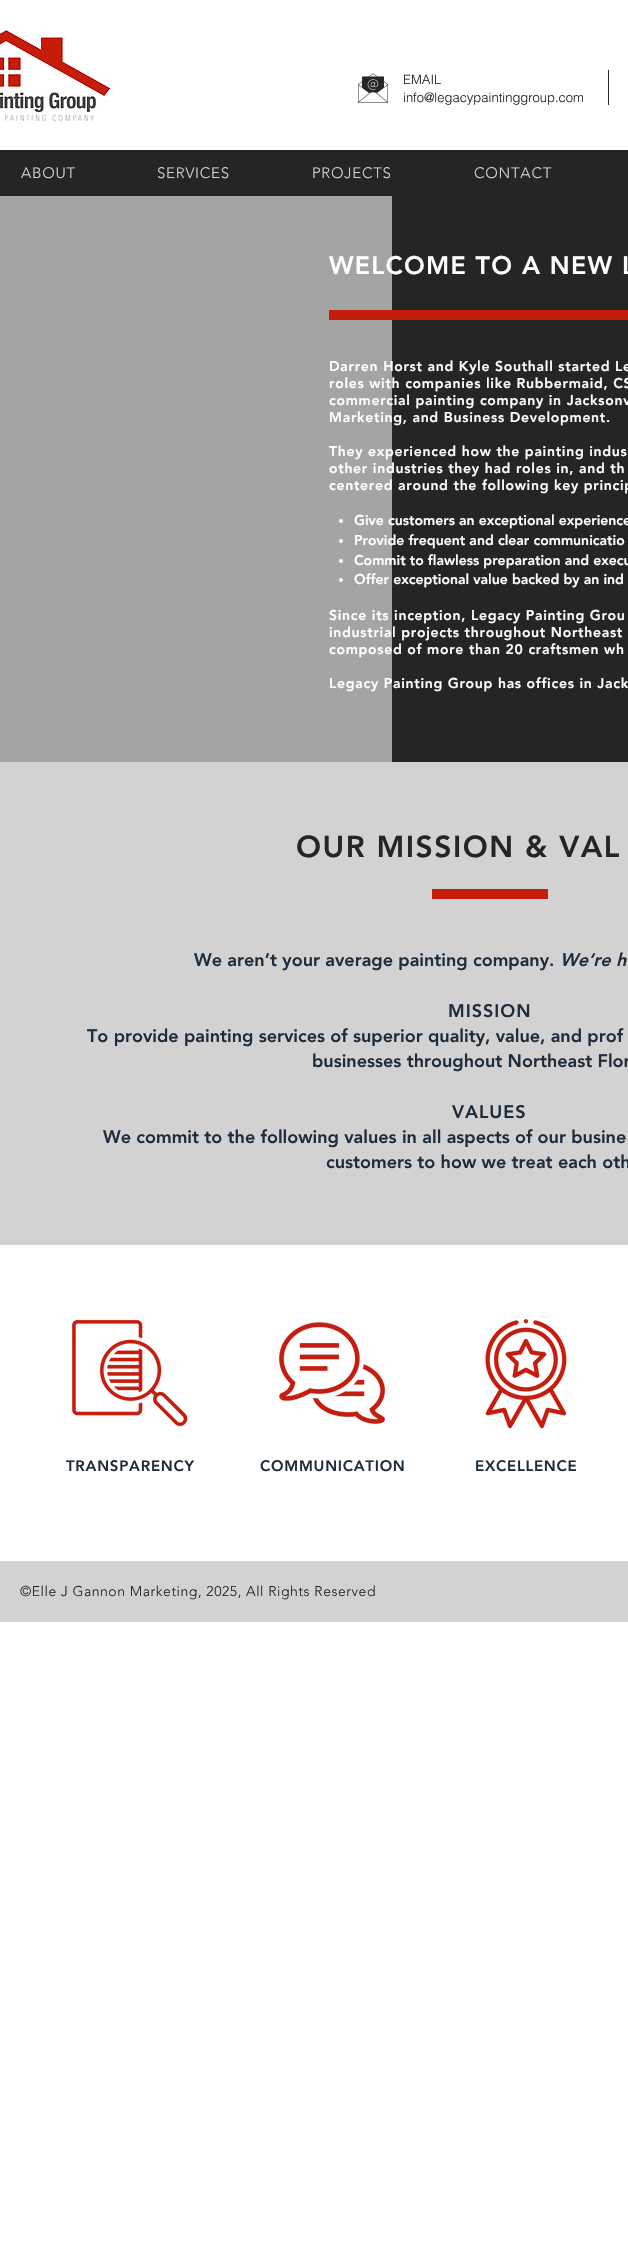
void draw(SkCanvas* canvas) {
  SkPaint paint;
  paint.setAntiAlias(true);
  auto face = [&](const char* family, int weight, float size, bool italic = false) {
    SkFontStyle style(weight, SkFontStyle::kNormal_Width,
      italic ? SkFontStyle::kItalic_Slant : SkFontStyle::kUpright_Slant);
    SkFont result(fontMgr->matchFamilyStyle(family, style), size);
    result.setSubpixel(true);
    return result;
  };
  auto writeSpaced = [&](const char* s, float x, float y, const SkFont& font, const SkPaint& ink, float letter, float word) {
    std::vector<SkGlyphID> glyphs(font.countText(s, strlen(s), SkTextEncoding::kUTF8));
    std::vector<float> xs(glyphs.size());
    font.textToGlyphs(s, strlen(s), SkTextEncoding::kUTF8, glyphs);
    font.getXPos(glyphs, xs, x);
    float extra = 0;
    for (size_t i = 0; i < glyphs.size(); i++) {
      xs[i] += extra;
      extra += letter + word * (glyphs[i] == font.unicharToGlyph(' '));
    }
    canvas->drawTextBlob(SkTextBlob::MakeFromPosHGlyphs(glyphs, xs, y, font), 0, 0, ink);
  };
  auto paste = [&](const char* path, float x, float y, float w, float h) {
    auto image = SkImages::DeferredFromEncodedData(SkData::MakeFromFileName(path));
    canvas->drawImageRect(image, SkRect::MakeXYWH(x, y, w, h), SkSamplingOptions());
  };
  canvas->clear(0xffffffff);
  paste("img/1.png", 0, 30, 110, 92);
  paste("img/2.png", 358, 73, 30, 30);
  {
    const struct { float x, y, w, h; SkColor color; } items[] = {
      {608, 70, 1, 35, 0xff282626},
      {0, 150, 628, 46, 0xff252525},
      {0, 196, 392, 566, 0xffa4a4a4},
      {392, 196, 236, 566, 0xff252525},
      {329, 310, 299, 10, 0xffc61c0c},
    };
    for (auto [x, y, w, h, color] : items) {
      paint.setColor(color);
      canvas->drawRect(SkRect::MakeXYWH(x, y, w, h), paint);
    }
  }
  paint.setColor(0xffffffff);
  canvas->drawCircle(341, 521, 2, paint);
  canvas->drawCircle(341, 541, 2, paint);
  canvas->drawCircle(341, 561, 2, paint);
  canvas->drawCircle(341, 580, 2, paint);
  paint.setColor(0xffd2d2d2);
  canvas->drawRect(SkRect::MakeXYWH(0, 762, 628, 483), paint);
  paint.setColor(0xffc61c0c);
  canvas->drawRect(SkRect::MakeXYWH(432, 889, 116, 10), paint);
  paste("img/3.png", 72, 1319, 116, 108);
  paste("img/4.png", 279, 1322, 106, 102);
  paste("img/5.png", 485, 1319, 82, 110);
  paint.setColor(0xffd2d2d2);
  canvas->drawRect(SkRect::MakeXYWH(0, 1561, 628, 61), paint);
  auto f0 = face("helvetica", 300, 13);
  paint.setColor(0xff252525);
  canvas->drawString("EMAIL", 403, 84, f0, paint);
  canvas->drawString("info@legacypaintinggroup.com", 403, 102, f0, paint);
  auto f1 = face("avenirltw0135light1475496", 300, 15);
  paint.setColor(0xffd2d2d2);
  {
    const struct { const char* s; float x, y; } items[] = {
      {"ABOUT", 21, 178},
      {"SERVICES", 157, 178},
      {"PROJECTS", 312, 178},
      {"CONTACT", 474, 178},
    };
    for (auto [s, x, y] : items) {
      writeSpaced(s, x, y, f1, paint, 0.75f, 0);
    }
  }
  auto f2 = face("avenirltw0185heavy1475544", 900, 25);
  paint.setColor(0xffffffff);
  writeSpaced("WELCOME TO A NEW L", 329, 274, f2, paint, 1.25f, 0);
  auto f3 = face("avenirltw0185heavy1475544", 900, 14);
  {
    const struct { const char* s; float x, y; } items[] = {
      {"Darren Horst and Kyle Southall started Le", 329, 371},
      {"roles with companies like Rubbermaid, CS", 329, 388},
      {"commercial painting company in Jacksonv", 329, 405},
      {"Marketing, and Business Development.", 329, 422},
      {"They experienced how the painting indus", 329, 456},
      {"other industries they had roles in, and th", 329, 473},
      {"centered around the following key princip", 329, 490},
    };
    for (auto [s, x, y] : items) {
      writeSpaced(s, x, y, f3, paint, 0.7f, 0);
    }
  }
  {
    const struct { const char* s; float x, y; } items[] = {
      {"Give customers an exceptional experience", 354, 525},
      {"Provide frequent and clear communicatio", 354, 545},
      {"Commit to flawless preparation and execu", 354, 565},
      {"Offer exceptional value backed by an ind", 354, 584},
    };
    for (auto [s, x, y] : items) {
      canvas->drawString(s, x, y, f3, paint);
    }
  }
  {
    const struct { const char* s; float x, y; } items[] = {
      {"Since its inception, Legacy Painting Grou", 329, 620},
      {"industrial projects throughout Northeast", 329, 637},
      {"composed of more than 20 craftsmen wh", 329, 654},
      {"Legacy Painting Group has offices in Jack", 329, 688},
    };
    for (auto [s, x, y] : items) {
      writeSpaced(s, x, y, f3, paint, 0.7f, 0);
    }
  }
  auto f4 = face("avenirltw0185heavy1475544", 900, 30);
  paint.setColor(0xff252525);
  writeSpaced("OUR MISSION & VAL", 296, 857, f4, paint, 1.5f, 0);
  auto f5 = face("avenirltw0185heavy1475544", 900, 18);
  paint.setColor(0xff1e2d3b);
  canvas->drawString("We aren’t your average painting company.", 194, 966, f5, paint);
  auto f6 = face("avenirltw0185heavy1475544", 900, 18, true);
  canvas->drawString("We’re h", 560, 966, f6, paint);
  writeSpaced("MISSION", 448, 1017, f5, paint, 1, 0);
  canvas->drawString("To provide painting services of superior quality, value, and prof", 87, 1042, f5, paint);
  canvas->drawString("businesses throughout Northeast Flor", 312, 1067, f5, paint);
  writeSpaced("VALUES", 452, 1118, f5, paint, 1, 0);
  canvas->drawString("We commit to the following values in all aspects of our busine", 103, 1143, f5, paint);
  canvas->drawString("customers to how we treat each oth", 326, 1168, f5, paint);
  auto f7 = face("avenirltw0185heavy1475544", 900, 15);
  {
    const struct { const char* s; float x, y; } items[] = {
      {"TRANSPARENCY", 66, 1471},
      {"COMMUNICATION", 260, 1471},
      {"EXCELLENCE", 475, 1471},
    };
    for (auto [s, x, y] : items) {
      writeSpaced(s, x, y, f7, paint, 0.75f, 0);
    }
  }
  auto f8 = face("avenirltw0135light1475496", 300, 14);
  paint.setColor(0xff252525);
  writeSpaced("©Elle J Gannon Marketing, 2025, All Rights Reserved", 20, 1596, f8, paint, 0.55f, 0);
}
